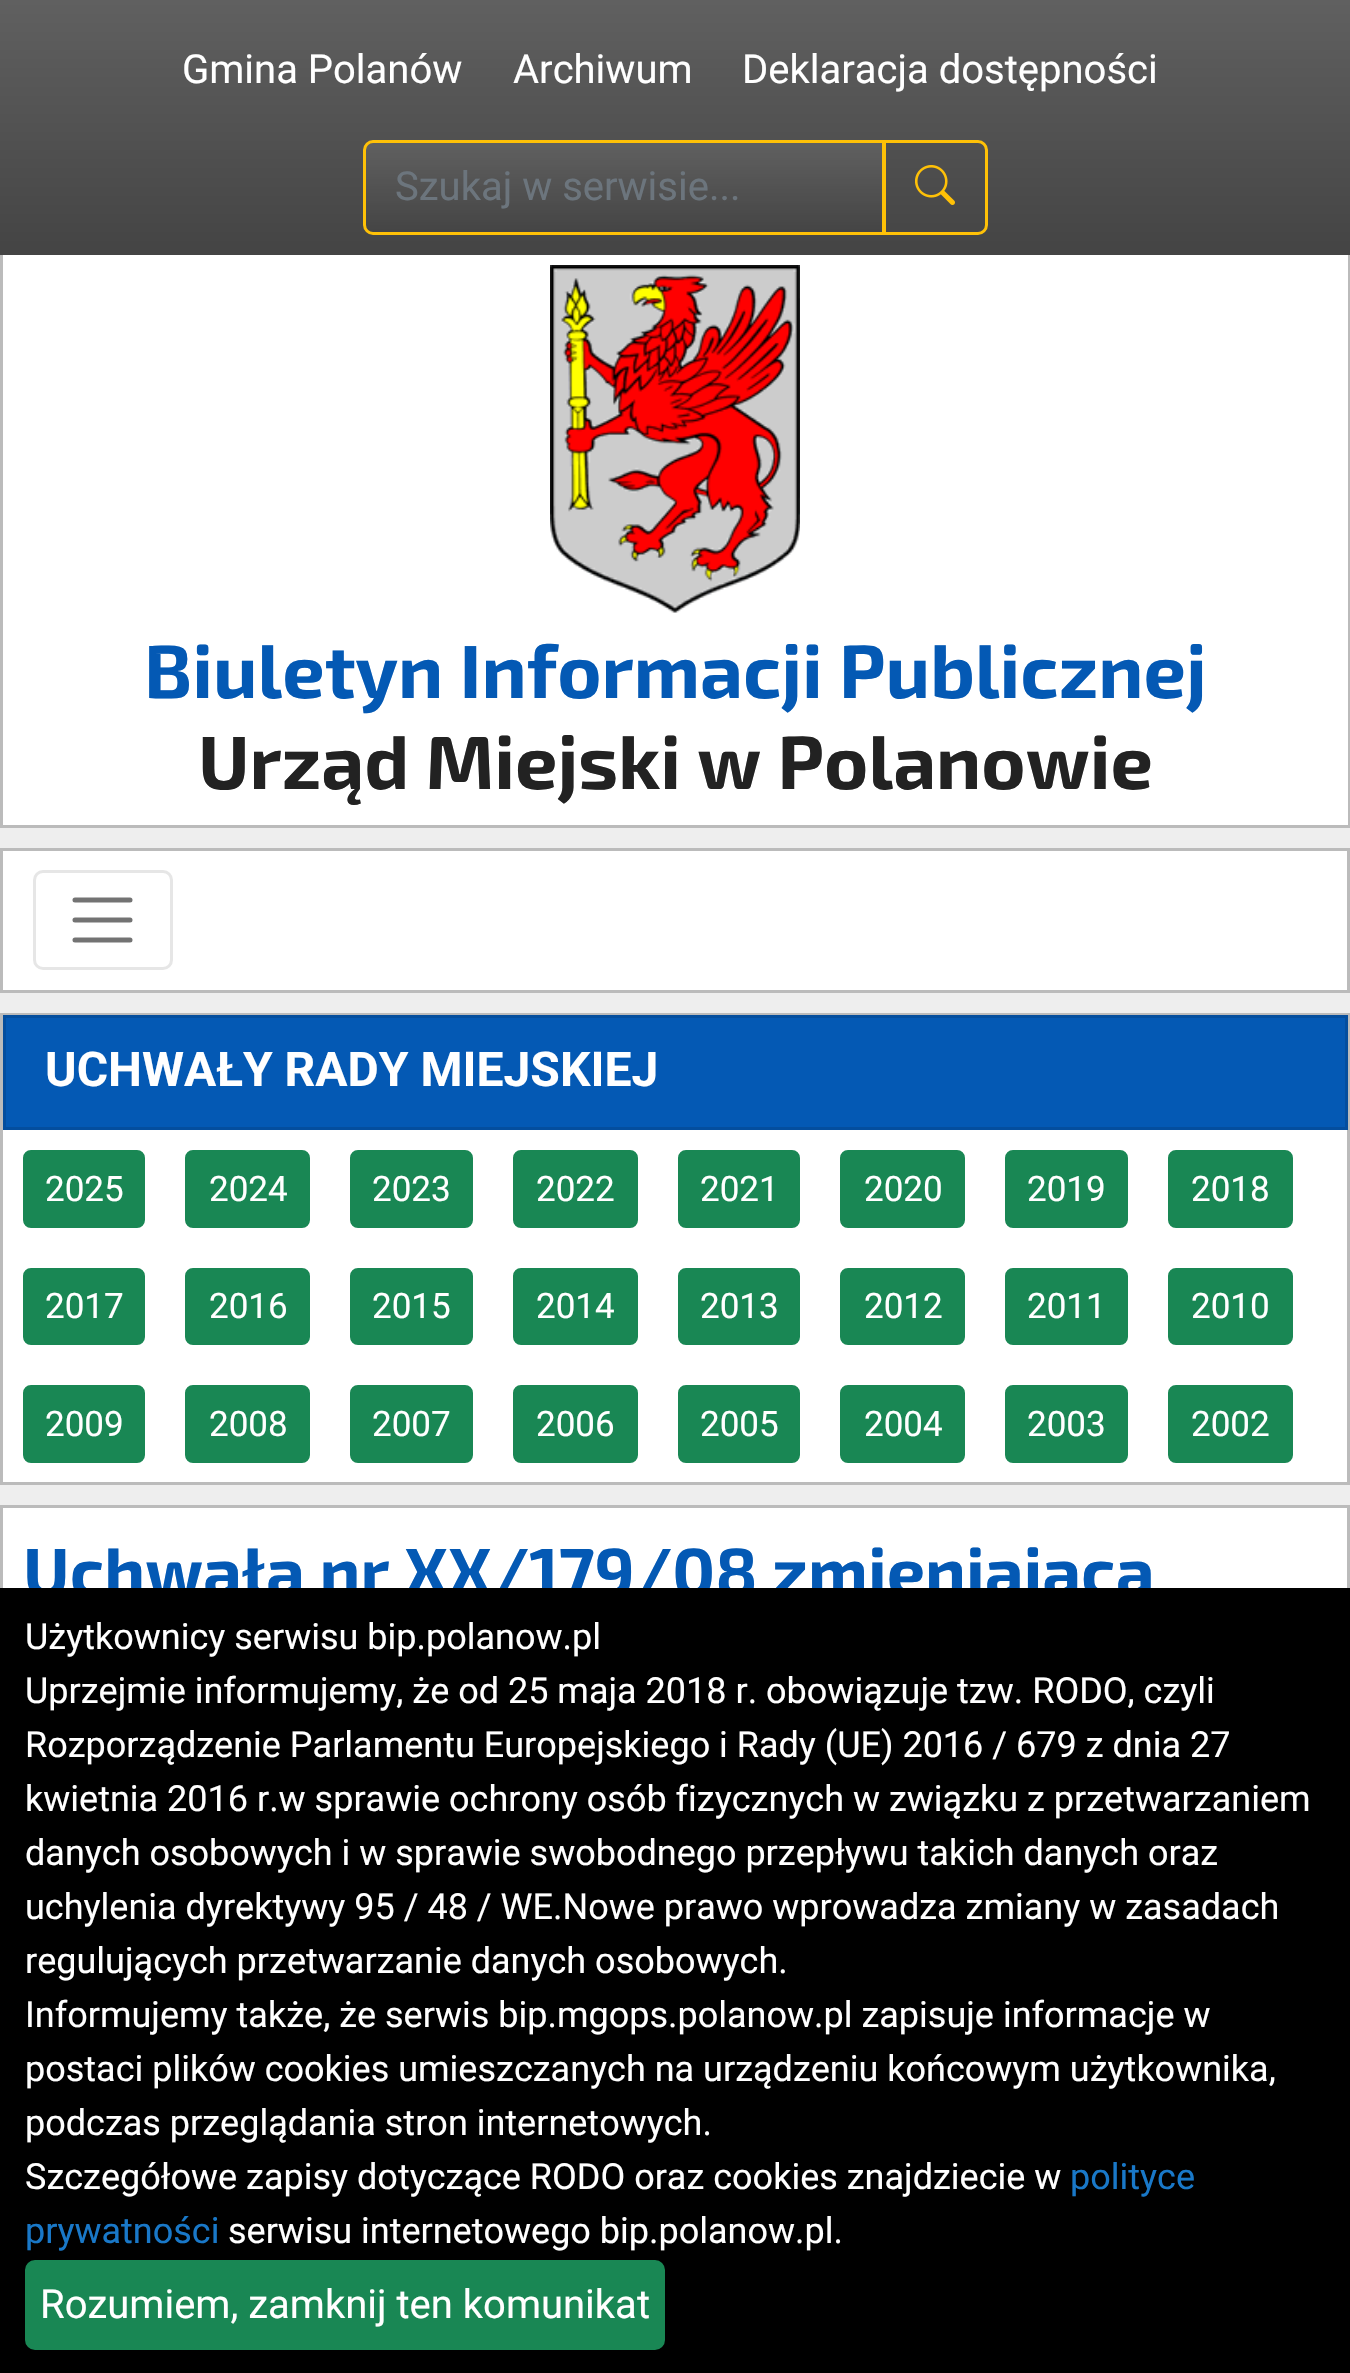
void draw(SkCanvas* canvas) {
  SkPaint paint;
  paint.setAntiAlias(true);
  auto face = [&](const char* family, int weight, float size, bool italic = false) {
    SkFontStyle style(weight, SkFontStyle::kNormal_Width,
      italic ? SkFontStyle::kItalic_Slant : SkFontStyle::kUpright_Slant);
    SkFont result(fontMgr->matchFamilyStyle(family, style), size);
    result.setSubpixel(true);
    return result;
  };
  auto paste = [&](const char* path, float x, float y, float w, float h) {
    auto image = SkImages::DeferredFromEncodedData(SkData::MakeFromFileName(path));
    canvas->drawImageRect(image, SkRect::MakeXYWH(x, y, w, h), SkSamplingOptions());
  };
  auto shape = [&](const char* data, bool evenOdd = false) {
    SkPath result = *SkParsePath::FromSVGString(data);
    if (evenOdd) result.setFillType(SkPathFillType::kEvenOdd);
    return result;
  };
  canvas->clear(0xffeeeeee);
  {
    const SkColor colors[] = {0xff606060, 0xff444444};
    const float stops[] = {0, 1};
    const SkPoint ends[] = {{675, 0}, {675, 255}};
    paint.setShader(SkGradientShader::MakeLinear(ends, colors, stops, 2, SkTileMode::kClamp));
    paint.setAlpha(255);
  }
  canvas->drawRect(SkRect::MakeXYWH(0, 0, 1350, 255), paint);
  paint.setShader(nullptr);
  paint.setColor(0xff444444);
  canvas->drawPath(shape("M373 143H883V233H373C368.5 233 365 229.5 365 225V151C365 146.5 368.5 143 373 143Z"), paint);
  {
    const SkColor colors[] = {0x26ffffff, 0x00ffffff};
    const float stops[] = {0, 1};
    const SkPoint ends[] = {{624, 142}, {624, 233}};
    paint.setShader(SkGradientShader::MakeLinear(ends, colors, stops, 2, SkTileMode::kClamp));
    paint.setAlpha(255);
  }
  canvas->drawPath(shape("M373 143H883V233H373C368.5 233 365 229.5 365 225V151C365 146.5 368.5 143 373 143Z"), paint);
  paint.setStroke(true);
  paint.setStrokeWidth(3);
  paint.setShader(nullptr);
  paint.setColor(0xffffc107);
  canvas->drawPath(shape("M373 141.5H883.5V233.5H373C368.5 233.5 364.5 229.5 364.5 225V150C364.5 145.5 368.5 141.5 373 141.5Z"), paint);
  canvas->drawPath(shape("M884.5 141.5H978C982.5 141.5 986.5 145.5 986.5 150V225C986.5 229.5 982.5 233.5 978 233.5H884.5Z"), paint);
  paste("img/1.png", 915, 165, 40, 40);
  paint.setStroke(false);
  {
    const struct { float x, y, w, h; SkColor color; } items[] = {
      {3, 255, 1345, 570, 0xffffffff},
      {1348, 255, 2, 573, 0xffbbbbbb},
      {0, 825, 1350, 3, 0xffbbbbbb},
      {0, 255, 3, 573, 0xffbbbbbb},
    };
    for (auto [x, y, w, h, color] : items) {
      paint.setColor(color);
      canvas->drawRect(SkRect::MakeXYWH(x, y, w, h), paint);
    }
  }
  paste("img/2.png", 550, 265, 250, 348);
  paint.setColor(0xffffffff);
  canvas->drawRect(SkRect::MakeXYWH(1.5f, 849.5f, 1347, 142), paint);
  paint.setStroke(true);
  paint.setColor(0xffbbbbbb);
  canvas->drawRect(SkRect::MakeXYWH(1.5f, 849.5f, 1347, 142), paint);
  paint.setColor(0xffe6e6e6);
  canvas->drawRoundRect(SkRect::MakeXYWH(34.5f, 871.5f, 137, 97), 8.5f, 8.5f, paint);
  paint.setStrokeWidth(5);
  paint.setStrokeCap(SkPaint::kRound_Cap);
  paint.setColor(0xff737373);
  canvas->drawPath(shape("M75 900H130M75 920H130M75 940H130"), paint);
  paint.setStroke(false);
  paint.setColor(0xffffffff);
  canvas->drawRect(SkRect::MakeXYWH(3, 1130, 1344, 352), paint);
  paint.setStroke(true);
  paint.setStrokeWidth(3);
  paint.setStrokeCap(SkPaint::kButt_Cap);
  paint.setColor(0xffbbbbbb);
  canvas->drawRect(SkRect::MakeXYWH(1.5f, 1014.5f, 1347, 469), paint);
  paint.setStroke(false);
  paint.setColor(0xff0459b4);
  canvas->drawRect(SkRect::MakeXYWH(4.5f, 1016.5f, 1342, 112), paint);
  paint.setStroke(true);
  paint.setColor(0xff044e9e);
  canvas->drawRect(SkRect::MakeXYWH(4.5f, 1016.5f, 1342, 112), paint);
  paint.setStroke(false);
  paint.setColor(0xff198754);
  canvas->drawRoundRect(SkRect::MakeXYWH(24.5f, 1151.5f, 119, 75), 6.5f, 6.5f, paint);
  paint.setStroke(true);
  canvas->drawRoundRect(SkRect::MakeXYWH(24.5f, 1151.5f, 119, 75), 6.5f, 6.5f, paint);
  paint.setStroke(false);
  canvas->drawRoundRect(SkRect::MakeXYWH(186.5f, 1151.5f, 122, 75), 6.5f, 6.5f, paint);
  paint.setStroke(true);
  canvas->drawRoundRect(SkRect::MakeXYWH(186.5f, 1151.5f, 122, 75), 6.5f, 6.5f, paint);
  paint.setStroke(false);
  canvas->drawRoundRect(SkRect::MakeXYWH(351.5f, 1151.5f, 120, 75), 6.5f, 6.5f, paint);
  paint.setStroke(true);
  canvas->drawRoundRect(SkRect::MakeXYWH(351.5f, 1151.5f, 120, 75), 6.5f, 6.5f, paint);
  paint.setStroke(false);
  canvas->drawRoundRect(SkRect::MakeXYWH(514.5f, 1151.5f, 122, 75), 6.5f, 6.5f, paint);
  paint.setStroke(true);
  canvas->drawRoundRect(SkRect::MakeXYWH(514.5f, 1151.5f, 122, 75), 6.5f, 6.5f, paint);
  paint.setStroke(false);
  canvas->drawRoundRect(SkRect::MakeXYWH(679.5f, 1151.5f, 119, 75), 6.5f, 6.5f, paint);
  paint.setStroke(true);
  canvas->drawRoundRect(SkRect::MakeXYWH(679.5f, 1151.5f, 119, 75), 6.5f, 6.5f, paint);
  paint.setStroke(false);
  canvas->drawRoundRect(SkRect::MakeXYWH(841.5f, 1151.5f, 122, 75), 6.5f, 6.5f, paint);
  paint.setStroke(true);
  canvas->drawRoundRect(SkRect::MakeXYWH(841.5f, 1151.5f, 122, 75), 6.5f, 6.5f, paint);
  paint.setStroke(false);
  canvas->drawRoundRect(SkRect::MakeXYWH(1006.5f, 1151.5f, 120, 75), 6.5f, 6.5f, paint);
  paint.setStroke(true);
  canvas->drawRoundRect(SkRect::MakeXYWH(1006.5f, 1151.5f, 120, 75), 6.5f, 6.5f, paint);
  paint.setStroke(false);
  canvas->drawRoundRect(SkRect::MakeXYWH(1169.5f, 1151.5f, 122, 75), 6.5f, 6.5f, paint);
  paint.setStroke(true);
  canvas->drawRoundRect(SkRect::MakeXYWH(1169.5f, 1151.5f, 122, 75), 6.5f, 6.5f, paint);
  paint.setStroke(false);
  canvas->drawRoundRect(SkRect::MakeXYWH(24.5f, 1269.5f, 119, 74), 6.5f, 6.5f, paint);
  paint.setStroke(true);
  canvas->drawRoundRect(SkRect::MakeXYWH(24.5f, 1269.5f, 119, 74), 6.5f, 6.5f, paint);
  paint.setStroke(false);
  canvas->drawRoundRect(SkRect::MakeXYWH(186.5f, 1269.5f, 122, 74), 6.5f, 6.5f, paint);
  paint.setStroke(true);
  canvas->drawRoundRect(SkRect::MakeXYWH(186.5f, 1269.5f, 122, 74), 6.5f, 6.5f, paint);
  paint.setStroke(false);
  canvas->drawRoundRect(SkRect::MakeXYWH(351.5f, 1269.5f, 120, 74), 6.5f, 6.5f, paint);
  paint.setStroke(true);
  canvas->drawRoundRect(SkRect::MakeXYWH(351.5f, 1269.5f, 120, 74), 6.5f, 6.5f, paint);
  paint.setStroke(false);
  canvas->drawRoundRect(SkRect::MakeXYWH(514.5f, 1269.5f, 122, 74), 6.5f, 6.5f, paint);
  paint.setStroke(true);
  canvas->drawRoundRect(SkRect::MakeXYWH(514.5f, 1269.5f, 122, 74), 6.5f, 6.5f, paint);
  paint.setStroke(false);
  canvas->drawRoundRect(SkRect::MakeXYWH(679.5f, 1269.5f, 119, 74), 6.5f, 6.5f, paint);
  paint.setStroke(true);
  canvas->drawRoundRect(SkRect::MakeXYWH(679.5f, 1269.5f, 119, 74), 6.5f, 6.5f, paint);
  paint.setStroke(false);
  canvas->drawRoundRect(SkRect::MakeXYWH(841.5f, 1269.5f, 122, 74), 6.5f, 6.5f, paint);
  paint.setStroke(true);
  canvas->drawRoundRect(SkRect::MakeXYWH(841.5f, 1269.5f, 122, 74), 6.5f, 6.5f, paint);
  paint.setStroke(false);
  canvas->drawRoundRect(SkRect::MakeXYWH(1006.5f, 1269.5f, 120, 74), 6.5f, 6.5f, paint);
  paint.setStroke(true);
  canvas->drawRoundRect(SkRect::MakeXYWH(1006.5f, 1269.5f, 120, 74), 6.5f, 6.5f, paint);
  paint.setStroke(false);
  canvas->drawRoundRect(SkRect::MakeXYWH(1169.5f, 1269.5f, 122, 74), 6.5f, 6.5f, paint);
  paint.setStroke(true);
  canvas->drawRoundRect(SkRect::MakeXYWH(1169.5f, 1269.5f, 122, 74), 6.5f, 6.5f, paint);
  paint.setStroke(false);
  canvas->drawRoundRect(SkRect::MakeXYWH(24.5f, 1386.5f, 119, 75), 6.5f, 6.5f, paint);
  paint.setStroke(true);
  canvas->drawRoundRect(SkRect::MakeXYWH(24.5f, 1386.5f, 119, 75), 6.5f, 6.5f, paint);
  paint.setStroke(false);
  canvas->drawRoundRect(SkRect::MakeXYWH(186.5f, 1386.5f, 122, 75), 6.5f, 6.5f, paint);
  paint.setStroke(true);
  canvas->drawRoundRect(SkRect::MakeXYWH(186.5f, 1386.5f, 122, 75), 6.5f, 6.5f, paint);
  paint.setStroke(false);
  canvas->drawRoundRect(SkRect::MakeXYWH(351.5f, 1386.5f, 120, 75), 6.5f, 6.5f, paint);
  paint.setStroke(true);
  canvas->drawRoundRect(SkRect::MakeXYWH(351.5f, 1386.5f, 120, 75), 6.5f, 6.5f, paint);
  paint.setStroke(false);
  canvas->drawRoundRect(SkRect::MakeXYWH(514.5f, 1386.5f, 122, 75), 6.5f, 6.5f, paint);
  paint.setStroke(true);
  canvas->drawRoundRect(SkRect::MakeXYWH(514.5f, 1386.5f, 122, 75), 6.5f, 6.5f, paint);
  paint.setStroke(false);
  canvas->drawRoundRect(SkRect::MakeXYWH(679.5f, 1386.5f, 119, 75), 6.5f, 6.5f, paint);
  paint.setStroke(true);
  canvas->drawRoundRect(SkRect::MakeXYWH(679.5f, 1386.5f, 119, 75), 6.5f, 6.5f, paint);
  paint.setStroke(false);
  canvas->drawRoundRect(SkRect::MakeXYWH(841.5f, 1386.5f, 122, 75), 6.5f, 6.5f, paint);
  paint.setStroke(true);
  canvas->drawRoundRect(SkRect::MakeXYWH(841.5f, 1386.5f, 122, 75), 6.5f, 6.5f, paint);
  paint.setStroke(false);
  canvas->drawRoundRect(SkRect::MakeXYWH(1006.5f, 1386.5f, 120, 75), 6.5f, 6.5f, paint);
  paint.setStroke(true);
  canvas->drawRoundRect(SkRect::MakeXYWH(1006.5f, 1386.5f, 120, 75), 6.5f, 6.5f, paint);
  paint.setStroke(false);
  canvas->drawRoundRect(SkRect::MakeXYWH(1169.5f, 1386.5f, 122, 75), 6.5f, 6.5f, paint);
  paint.setStroke(true);
  canvas->drawRoundRect(SkRect::MakeXYWH(1169.5f, 1386.5f, 122, 75), 6.5f, 6.5f, paint);
  paint.setStroke(false);
  paint.setColor(0xffffffff);
  canvas->drawRect(SkRect::MakeXYWH(3, 1508, 1344, 80), paint);
  paint.setStroke(true);
  paint.setColor(0xffbbbbbb);
  canvas->drawRect(SkRect::MakeXYWH(1.5f, 1506.5f, 1347, 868), paint);
  auto f0 = face("Roboto", 400, 40);
  paint.setStroke(false);
  paint.setColor(0xffffffff);
  {
    const struct { const char* s; float x, y; } items[] = {
      {"Gmina Polanów", 182, 83},
      {"Archiwum", 513, 83},
      {"Deklaracja dostępności", 742, 83},
    };
    for (auto [s, x, y] : items) {
      canvas->drawString(s, x, y, f0, paint);
    }
  }
  paint.setColor(0xff6c757d);
  canvas->drawString("Szukaj w serwisie...", 395, 200, f0, paint);
  auto f1 = face("Exo 2", 700, 75.25f);
  paint.setColor(0xff0459b4);
  canvas->drawString("Biuletyn Informacji Publicznej", 144, 698, f1, paint);
  paint.setColor(0xff222222);
  canvas->drawString("Urząd Miejski w Polanowie", 198, 789, f1, paint);
  auto f2 = face("Roboto", 700, 48);
  paint.setColor(0xffffffff);
  canvas->drawString("UCHWAŁY RADY MIEJSKIEJ", 45, 1086, f2, paint);
  auto f3 = face("Roboto", 400, 35);
  {
    const struct { const char* s; float x, y; } items[] = {
      {"2025", 45, 1201},
      {"2024", 209, 1201},
      {"2023", 372, 1201},
      {"2022", 536, 1201},
      {"2021", 700, 1201},
      {"2020", 864, 1201},
      {"2019", 1027, 1201},
      {"2018", 1191, 1201},
      {"2017", 45, 1318},
      {"2016", 209, 1318},
      {"2015", 372, 1318},
      {"2014", 536, 1318},
      {"2013", 700, 1318},
      {"2012", 864, 1318},
      {"2011", 1027, 1318},
      {"2010", 1191, 1318},
      {"2009", 45, 1436},
      {"2008", 209, 1436},
      {"2007", 372, 1436},
      {"2006", 536, 1436},
      {"2005", 700, 1436},
      {"2004", 864, 1436},
      {"2003", 1027, 1436},
      {"2002", 1191, 1436},
    };
    for (auto [s, x, y] : items) {
      canvas->drawString(s, x, y, f3, paint);
    }
  }
  auto f4 = face("Exo 2", 700, 68);
  paint.setColor(0xff0459b4);
  canvas->drawString("Uchwała nr XX/179/08 zmieniająca", 23, 1596, f4, paint);
  paint.setColor(0xff000000);
  canvas->drawRect(SkRect::MakeXYWH(0, 1588, 1350, 785), paint);
  auto f5 = face("Roboto", 400, 36);
  paint.setColor(0xffffffff);
  {
    const struct { const char* s; float x, y; } items[] = {
      {"Użytkownicy serwisu bip.polanow.pl", 25, 1649},
      {"Uprzejmie informujemy, że od 25 maja 2018 r. obowiązuje tzw. RODO, czyli", 25, 1703},
      {"Rozporządzenie Parlamentu Europejskiego i Rady (UE) 2016 / 679 z dnia 27", 25, 1757},
      {"kwietnia 2016 r.w sprawie ochrony osób fizycznych w związku z przetwarzaniem", 25, 1811},
      {"danych osobowych i w sprawie swobodnego przepływu takich danych oraz", 25, 1865},
      {"uchylenia dyrektywy 95 / 48 / WE.Nowe prawo wprowadza zmiany w zasadach", 25, 1919},
      {"regulujących przetwarzanie danych osobowych.", 25, 1973},
      {"Informujemy także, że serwis bip.mgops.polanow.pl zapisuje informacje w", 25, 2027},
      {"postaci plików cookies umieszczanych na urządzeniu końcowym użytkownika,", 25, 2081},
      {"podczas przeglądania stron internetowych.", 25, 2135},
      {"Szczegółowe zapisy dotyczące RODO oraz cookies znajdziecie w", 25, 2189},
    };
    for (auto [s, x, y] : items) {
      canvas->drawString(s, x, y, f5, paint);
    }
  }
  paint.setColor(0xff1978c8);
  canvas->drawString("polityce", 1070, 2189, f5, paint);
  canvas->drawString("prywatności", 25, 2243, f5, paint);
  paint.setColor(0xffffffff);
  canvas->drawString("serwisu internetowego bip.polanow.pl.", 228, 2243, f5, paint);
  paint.setColor(0xff198754);
  canvas->drawRoundRect(SkRect::MakeXYWH(26.5f, 2261.5f, 637, 87), 8.5f, 8.5f, paint);
  paint.setStroke(true);
  canvas->drawRoundRect(SkRect::MakeXYWH(26.5f, 2261.5f, 637, 87), 8.5f, 8.5f, paint);
  paint.setStroke(false);
  paint.setColor(0xffffffff);
  canvas->drawString("Rozumiem, zamknij ten komunikat", 40, 2318, f0, paint);
}
